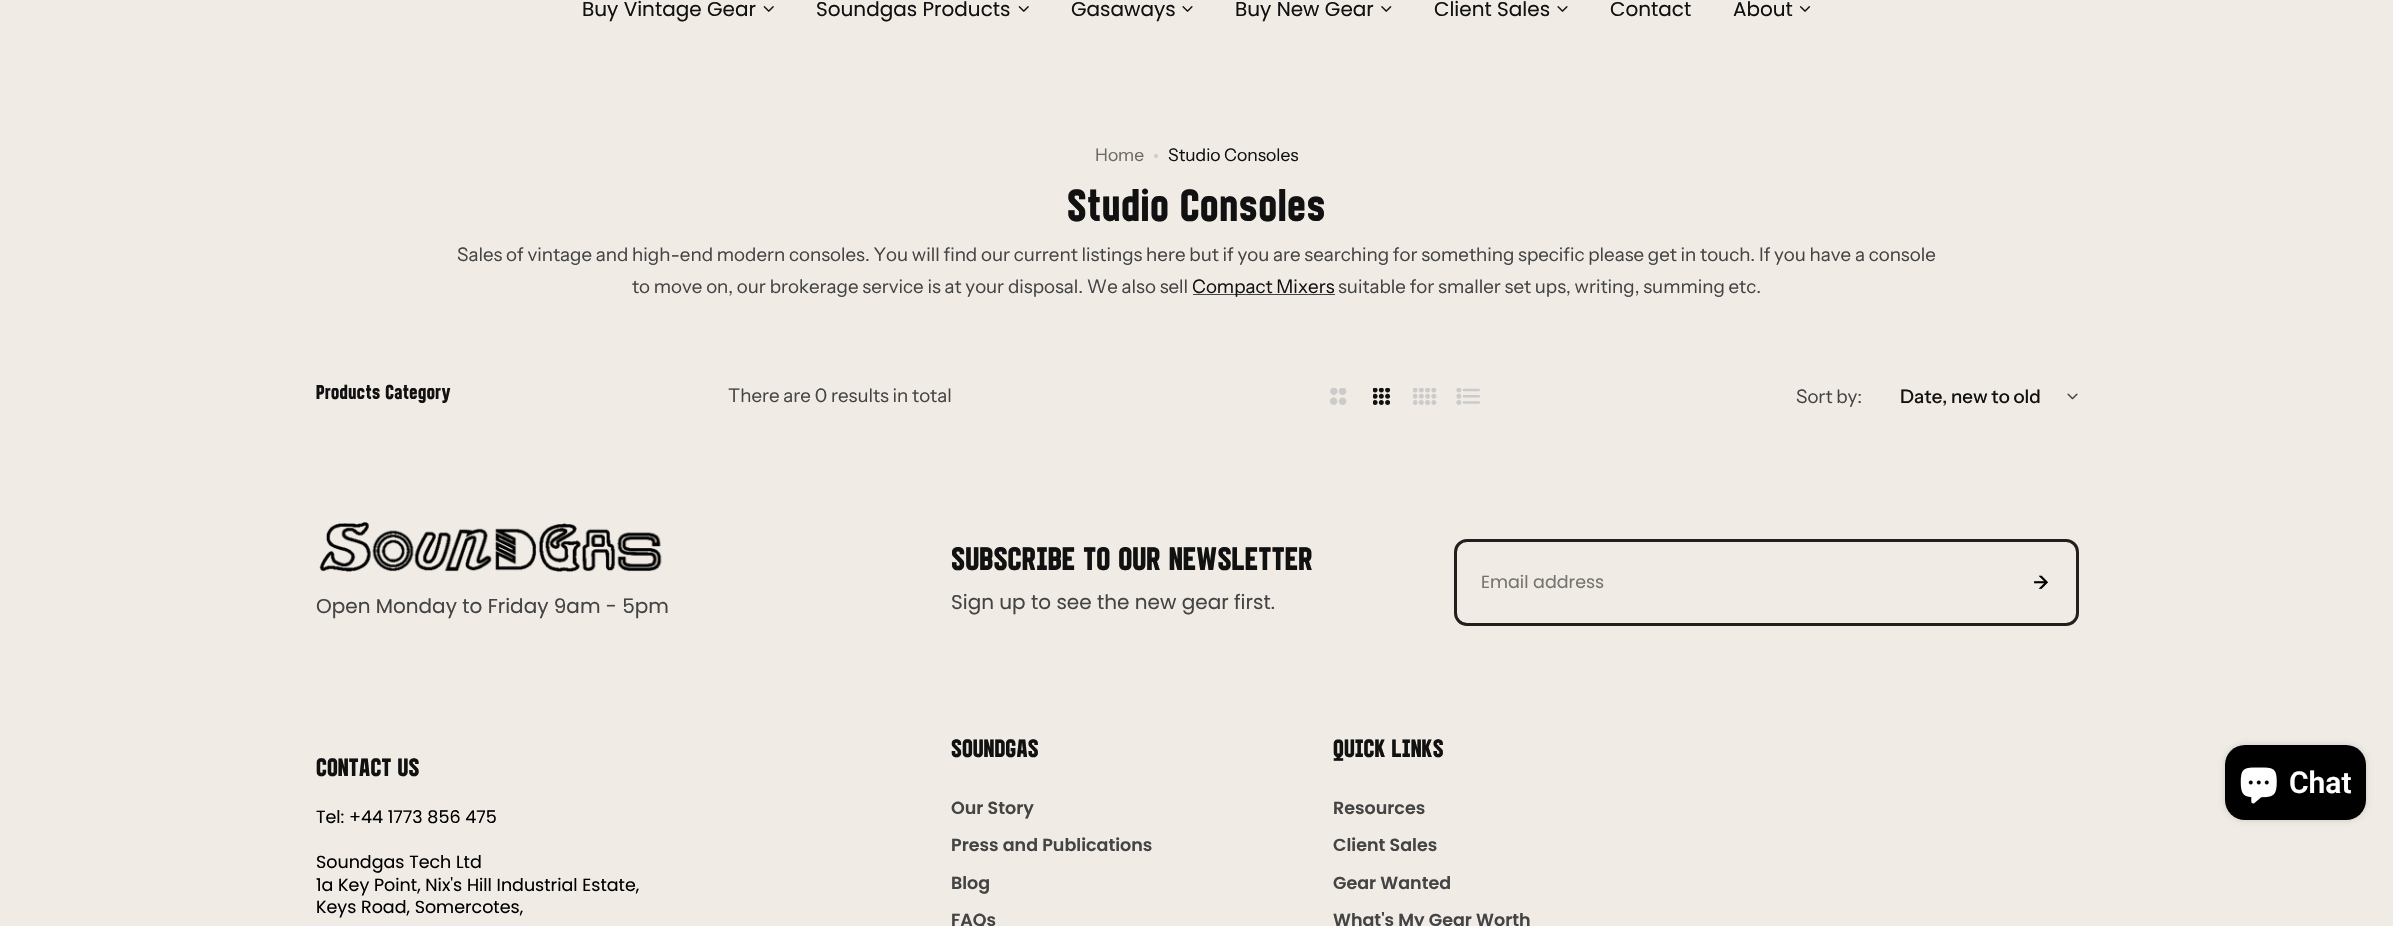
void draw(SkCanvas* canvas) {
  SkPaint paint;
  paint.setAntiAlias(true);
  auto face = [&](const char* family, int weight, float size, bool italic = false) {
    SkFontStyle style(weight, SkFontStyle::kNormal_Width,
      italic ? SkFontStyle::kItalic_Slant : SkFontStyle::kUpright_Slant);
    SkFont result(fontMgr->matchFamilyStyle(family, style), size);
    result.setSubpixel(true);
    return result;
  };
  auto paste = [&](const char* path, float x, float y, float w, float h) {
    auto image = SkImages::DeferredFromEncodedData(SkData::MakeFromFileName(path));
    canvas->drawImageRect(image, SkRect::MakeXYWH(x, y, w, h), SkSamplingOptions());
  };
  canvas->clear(0xfff0ece5);
  paste("img/1.png", 763, 6, 11, 6);
  paste("img/1.png", 1018, 6, 11, 6);
  paste("img/2.png", 1182, 6, 11, 6);
  paste("img/3.png", 1381, 6, 11, 6);
  paste("img/2.png", 1557, 6, 11, 6);
  paste("img/4.png", 1799, 6, 12, 6);
  paint.setColor(0xffcbcbcb);
  canvas->drawCircle(1156, 156, 2, paint);
  paint.setColor(0xff444444);
  canvas->drawRect(SkRect::MakeXYWH(1193, 294, 142, 1), paint);
  paint.setColor(0xffebebeb);
  canvas->drawRect(SkRect::MakeXYWH(316, 433, 338, 1), paint);
  paste("img/5.png", 1330, 388, 17, 17);
  paste("img/6.png", 1373, 388, 18, 17);
  paste("img/7.png", 1413, 388, 24, 17);
  paste("img/8.png", 1456, 388, 24, 17);
  paste("img/9.png", 2067, 393, 11, 7);
  canvas->drawRect(SkRect::MakeXYWH(0, 515, 2393, 1), paint);
  paste("img/10.png", 319, 522, 343, 50);
  paint.setStroke(true);
  paint.setStrokeWidth(3);
  paint.setColor(0xff231f1e);
  canvas->drawRoundRect(SkRect::MakeXYWH(1455.5f, 540.5f, 622, 84), 11.5f, 11.5f, paint);
  paint.setStroke(false);
  paint.setColor(0x26000000);
  paint.setMaskFilter(SkMaskFilter::MakeBlur(kNormal_SkBlurStyle, 3));
  canvas->drawRoundRect(SkRect::MakeXYWH(2225, 745, 141, 75), 20, 20, paint);
  paint.setMaskFilter(nullptr);
  paint.setColor(0xff000000);
  canvas->drawRoundRect(SkRect::MakeXYWH(2225, 745, 141, 75), 20, 20, paint);
  paste("img/11.png", 2240, 767, 37, 37);
  auto f0 = face("Poppins", 400, 20);
  paint.setColor(0xff111111);
  {
    const struct { const char* s; float x, y; } items[] = {
      {"Buy Vintage Gear", 582, 16},
      {"Soundgas Products", 816, 16},
      {"Gasaways", 1071, 16},
      {"Buy New Gear", 1235, 16},
      {"Client Sales", 1434, 16},
      {"Contact", 1610, 16},
      {"About", 1733, 16},
    };
    for (auto [s, x, y] : items) {
      canvas->drawString(s, x, y, f0, paint);
    }
  }
  auto f1 = face("Instrument Sans", 400, 17.5f);
  paint.setColor(0xff6a6966);
  canvas->drawString("Home", 1095, 161, f1, paint);
  paint.setColor(0xff111111);
  canvas->drawString("Studio Consoles", 1168, 161, f1, paint);
  auto f2 = face("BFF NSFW", 400, 45);
  canvas->drawString("Studio Consoles", 1067, 221, f2, paint);
  auto f3 = face("Instrument Sans", 400, 18.75f);
  paint.setColor(0xff444444);
  canvas->drawString("Sales of vintage and high-end modern consoles. You will find our current listings here but if you are searching for something specific please get in touch. If you have a console", 457, 261, f3, paint);
  canvas->drawString("to move on, our brokerage service is at your disposal. We also sell", 632, 293, f3, paint);
  paint.setColor(0xff111111);
  canvas->drawString("Compact Mixers", 1192, 293, f3, paint);
  paint.setColor(0xff444444);
  canvas->drawString("suitable for smaller set ups, writing, summing etc.", 1338, 293, f3, paint);
  auto f4 = face("BFF NSFW", 400, 20);
  paint.setColor(0xff111111);
  canvas->drawString("Products Category", 316, 399, f4, paint);
  paint.setColor(0xff444444);
  canvas->drawString("There are 0 results in total", 728, 402, f3, paint);
  canvas->drawString("Sort by:", 1796, 403, f3, paint);
  auto f5 = face("Instrument Sans", 500, 18.75f);
  paint.setColor(0xff111111);
  canvas->drawString("Date, new to old", 1900, 403, f5, paint);
  paint.setColor(0xff444444);
  canvas->drawString("Open Monday to Friday 9am - 5pm", 316, 613, f0, paint);
  auto f6 = face("BFF NSFW", 400, 25);
  paint.setColor(0xff111111);
  canvas->drawString("CONTACT US", 316, 776, f6, paint);
  auto f7 = face("Poppins", 400, 17.5f);
  paint.setColor(0xff000000);
  {
    const struct { const char* s; float x, y; } items[] = {
      {"Tel: +44 1773 856 475", 316, 823},
      {"Soundgas Tech Ltd", 316, 868},
      {"1a Key Point, Nix's Hill Industrial Estate,", 316, 891},
      {"Keys Road, Somercotes,", 316, 913},
    };
    for (auto [s, x, y] : items) {
      canvas->drawString(s, x, y, f7, paint);
    }
  }
  auto f8 = face("BFF NSFW", 400, 32.5f);
  paint.setColor(0xff111111);
  canvas->drawString("SUBSCRIBE TO OUR NEWSLETTER", 951, 570, f8, paint);
  paint.setColor(0xff444444);
  canvas->drawString("Sign up to see the new gear first.", 951, 609, f0, paint);
  paint.setColor(0xff757470);
  canvas->drawString("Email address", 1481, 588, f7, paint);
  auto f9 = face("Instrument Sans", 600, 18.75f);
  paint.setColor(0xff000000);
  canvas->drawString("→", 2033, 589, f9, paint);
  paint.setColor(0xff111111);
  canvas->drawString("SOUNDGAS", 951, 757, f6, paint);
  auto f10 = face("Poppins", 600, 17.5f);
  paint.setColor(0xff444444);
  {
    const struct { const char* s; float x, y; } items[] = {
      {"Our Story", 951, 814},
      {"Press and Publications", 951, 851},
      {"Blog", 951, 889},
      {"FAQs", 951, 926},
    };
    for (auto [s, x, y] : items) {
      canvas->drawString(s, x, y, f10, paint);
    }
  }
  paint.setColor(0xff111111);
  canvas->drawString("QUICK LINKS", 1333, 757, f6, paint);
  paint.setColor(0xff444444);
  {
    const struct { const char* s; float x, y; } items[] = {
      {"Resources", 1333, 814},
      {"Client Sales", 1333, 851},
      {"Gear Wanted", 1333, 889},
      {"What's My Gear Worth", 1333, 926},
    };
    for (auto [s, x, y] : items) {
      canvas->drawString(s, x, y, f10, paint);
    }
  }
  auto f11 = face("Roboto", 600, 30);
  paint.setColor(0xffffffff);
  canvas->drawString("Chat", 2289, 793, f11, paint);
}
